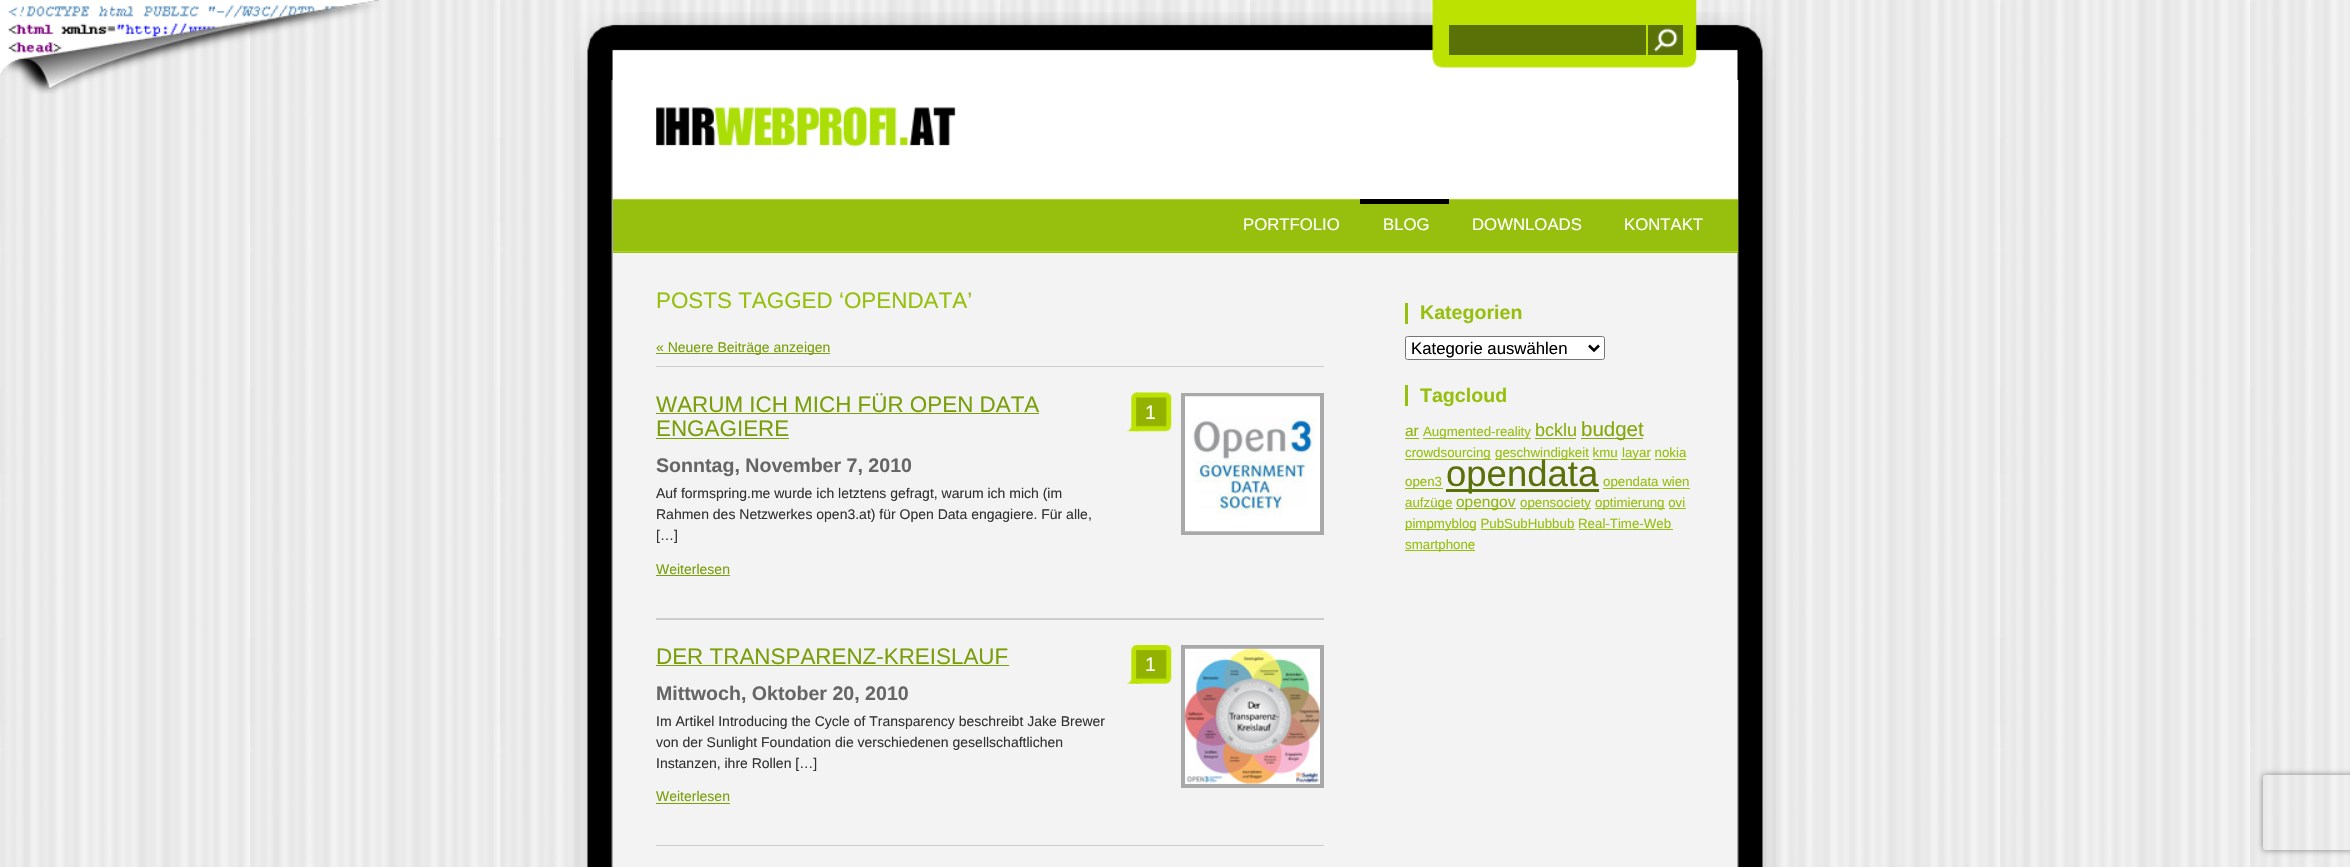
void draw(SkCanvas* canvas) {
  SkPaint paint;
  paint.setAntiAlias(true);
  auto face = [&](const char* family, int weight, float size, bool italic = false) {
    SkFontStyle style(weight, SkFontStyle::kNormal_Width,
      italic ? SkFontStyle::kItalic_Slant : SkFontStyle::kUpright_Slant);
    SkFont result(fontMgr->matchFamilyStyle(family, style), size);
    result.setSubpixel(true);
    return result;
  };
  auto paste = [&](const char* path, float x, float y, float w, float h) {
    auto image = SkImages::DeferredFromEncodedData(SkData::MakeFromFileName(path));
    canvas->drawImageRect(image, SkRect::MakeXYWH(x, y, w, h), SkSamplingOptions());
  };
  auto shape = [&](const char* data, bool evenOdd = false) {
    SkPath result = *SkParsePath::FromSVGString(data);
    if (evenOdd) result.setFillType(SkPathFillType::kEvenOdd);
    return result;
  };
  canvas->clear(0xffffffff);
  paste("img/1.png", 0, 0, 2350, 867);
  paste("img/2.png", 0, 0, 379, 94);
  paste("img/3.png", 574, 12, 1202, 68);
  paste("img/4.png", 1432, 0, 265, 68);
  paint.setColor(0xff597106);
  canvas->drawRect(SkRect::MakeXYWH(1449, 25, 197, 30), paint);
  canvas->drawRect(SkRect::MakeXYWH(1648, 25, 35, 30), paint);
  paste("img/5.png", 1653, 28, 25, 24);
  paste("img/6.png", 574, 80, 1202, 787);
  paint.setColor(0xffffffff);
  canvas->drawRect(SkRect::MakeXYWH(613, 80, 1125, 119), paint);
  paste("img/7.png", 656, 106, 300, 41);
  {
    const struct { float x, y, w, h; SkColor color; } items[] = {
      {613, 200, 1125, 53, 0xff97bf0d},
      {613, 199, 1125, 1, 0xffaed71f},
      {613, 251, 1125, 1, 0xffaed71f},
      {1360, 199, 89, 5, 0xff000000},
      {656, 353, 174, 1, 0xff7a9f0b},
      {656, 366, 668, 1, 0xffcccccc},
      {656, 618, 668, 2, 0xffcccccc},
      {656, 413, 383, 1, 0xff7a9f0b},
      {656, 438, 133, 1, 0xff7a9f0b},
      {656, 575, 74, 1, 0xff7a9f0b},
    };
    for (auto [x, y, w, h, color] : items) {
      paint.setColor(color);
      canvas->drawRect(SkRect::MakeXYWH(x, y, w, h), paint);
    }
  }
  paste("img/8.png", 1127, 392, 11, 40);
  paste("img/9.png", 1136, 392, 36, 40);
  paint.setStroke(true);
  paint.setStrokeWidth(4);
  paint.setColor(0xffa9a9a9);
  canvas->drawRect(SkRect::MakeXYWH(1183, 395, 139, 138), paint);
  paste("img/10.png", 1185, 396, 135, 136);
  paint.setStroke(false);
  {
    const struct { float x, y, w, h; SkColor color; } items[] = {
      {656, 845, 668, 1, 0xffcccccc},
      {656, 665, 353, 1, 0xff7a9f0b},
      {656, 803, 74, 1, 0xff7a9f0b},
    };
    for (auto [x, y, w, h, color] : items) {
      paint.setColor(color);
      canvas->drawRect(SkRect::MakeXYWH(x, y, w, h), paint);
    }
  }
  paste("img/11.png", 1127, 645, 11, 39);
  paste("img/12.png", 1136, 645, 36, 39);
  paint.setStroke(true);
  paint.setColor(0xffa9a9a9);
  canvas->drawRect(SkRect::MakeXYWH(1183, 647, 139, 139), paint);
  paste("img/13.png", 1185, 648, 135, 136);
  paint.setStroke(false);
  paint.setColor(0xff97bf0d);
  canvas->drawRect(SkRect::MakeXYWH(1405, 303, 3, 21), paint);
  paint.setColor(0xffffffff);
  canvas->drawRoundRect(SkRect::MakeXYWH(1405.5f, 336.5f, 199, 23), 2, 2, paint);
  paint.setStroke(true);
  paint.setStrokeWidth(1);
  paint.setColor(0xff767676);
  canvas->drawRoundRect(SkRect::MakeXYWH(1405.5f, 336.5f, 199, 23), 2, 2, paint);
  paint.setStrokeWidth(2.5f);
  paint.setColor(0xff000000);
  canvas->drawPath(shape("M1589 345.5L1594 350.5L1599 345.5"), paint);
  paint.setStroke(false);
  {
    const struct { float x, y, w, h; SkColor color; } items[] = {
      {1405, 385, 3, 21, 0xff97bf0d},
      {1405, 438, 14, 1, 0xff90b70c},
      {1423, 438, 108, 1, 0xff97bf0d},
      {1535, 438, 41, 1, 0xff8aaf0b},
      {1581, 438, 62, 1, 0xff84a70a},
      {1405, 459, 86, 1, 0xff97bf0d},
      {1495, 459, 94, 1, 0xff97bf0d},
      {1621, 459, 30, 1, 0xff97bf0d},
      {1446, 489, 153, 3, 0xff597106},
      {1593, 459, 25, 1, 0xff97bf0d},
      {1655, 459, 31, 1, 0xff97bf0d},
      {1405, 488, 38, 1, 0xff97bf0d},
      {1603, 488, 87, 1, 0xff97bf0d},
      {1405, 508, 48, 1, 0xff97bf0d},
      {1456, 508, 60, 1, 0xff90b70c},
      {1520, 508, 71, 1, 0xff97bf0d},
      {1595, 508, 70, 1, 0xff97bf0d},
      {1669, 508, 17, 1, 0xff97bf0d},
      {1405, 529, 71, 1, 0xff97bf0d},
      {1481, 529, 94, 1, 0xff97bf0d},
      {1579, 529, 94, 1, 0xff97bf0d},
      {1405, 550, 70, 1, 0xff97bf0d},
    };
    for (auto [x, y, w, h, color] : items) {
      paint.setColor(color);
      canvas->drawRect(SkRect::MakeXYWH(x, y, w, h), paint);
    }
  }
  canvas->save();
  canvas->clipPath(shape("M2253 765H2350V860H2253ZM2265.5 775H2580.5C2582 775 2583 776 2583 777.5V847.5C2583 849 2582 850 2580.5 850H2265.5C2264 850 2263 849 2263 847.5V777.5C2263 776 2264 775 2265.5 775Z", true), true);
  paint.setColor(0xff808080);
  paint.setMaskFilter(SkMaskFilter::MakeBlur(kNormal_SkBlurStyle, 3));
  canvas->drawRoundRect(SkRect::MakeXYWH(2263, 775, 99, 75), 2.5f, 2.5f, paint);
  paint.setMaskFilter(nullptr);
  canvas->restore();
  auto f0 = face("Liberation Sans", 400, 16.75f);
  paint.setColor(0xffffffff);
  {
    const struct { const char* s; float x, y; } items[] = {
      {"PORTFOLIO", 1243, 230},
      {"BLOG", 1383, 230},
      {"DOWNLOADS", 1472, 230},
      {"KONTAKT", 1624, 230},
    };
    for (auto [s, x, y] : items) {
      canvas->drawString(s, x, y, f0, paint);
    }
  }
  auto f1 = face("Liberation Sans", 400, 22.4f);
  paint.setColor(0xff97bf0d);
  canvas->drawString("POSTS TAGGED ‘OPENDATA’", 656, 308, f1, paint);
  auto f2 = face("Liberation Sans", 400, 14);
  paint.setColor(0xff7a9f0b);
  canvas->drawString("« Neuere Beiträge anzeigen", 656, 352, f2, paint);
  canvas->drawString("WARUM ICH MICH FÜR OPEN DATA", 656, 412, f1, paint);
  canvas->drawString("ENGAGIERE", 656, 436, f1, paint);
  auto f3 = face("Liberation Sans", 700, 19.6f);
  paint.setColor(0xff666666);
  canvas->drawString("Sonntag, November 7, 2010", 656, 472, f3, paint);
  paint.setColor(0xff333333);
  {
    const struct { const char* s; float x, y; } items[] = {
      {"Auf formspring.me wurde ich letztens gefragt, warum ich mich (im", 656, 498},
      {"Rahmen des Netzwerkes open3.at) für Open Data engagiere. Für alle,", 656, 519},
      {"[…]", 656, 540},
    };
    for (auto [s, x, y] : items) {
      canvas->drawString(s, x, y, f2, paint);
    }
  }
  paint.setColor(0xff7a9f0b);
  canvas->drawString("Weiterlesen", 656, 574, f2, paint);
  auto f4 = face("Liberation Sans", 400, 19.6f);
  paint.setColor(0xffffffff);
  canvas->drawString("1", 1145, 419, f4, paint);
  paint.setColor(0xff7a9f0b);
  canvas->drawString("DER TRANSPARENZ-KREISLAUF", 656, 664, f1, paint);
  paint.setColor(0xff666666);
  canvas->drawString("Mittwoch, Oktober 20, 2010", 656, 700, f3, paint);
  paint.setColor(0xff333333);
  {
    const struct { const char* s; float x, y; } items[] = {
      {"Im Artikel Introducing the Cycle of Transparency beschreibt Jake Brewer", 656, 726},
      {"von der Sunlight Foundation die verschiedenen gesellschaftlichen", 656, 747},
      {"Instanzen, ihre Rollen […]", 656, 768},
    };
    for (auto [s, x, y] : items) {
      canvas->drawString(s, x, y, f2, paint);
    }
  }
  paint.setColor(0xff7a9f0b);
  canvas->drawString("Weiterlesen", 656, 801, f2, paint);
  paint.setColor(0xffffffff);
  canvas->drawString("1", 1145, 671, f4, paint);
  paint.setColor(0xff97bf0d);
  canvas->drawString("Kategorien", 1420, 319, f3, paint);
  paint.setColor(0xff000000);
  canvas->drawString("Kategorie auswählen", 1411, 354, f0, paint);
  paint.setColor(0xff97bf0d);
  canvas->drawString("Tagcloud", 1420, 402, f3, paint);
  auto f5 = face("Liberation Sans", 400, 15.5f);
  paint.setColor(0xff90b70c);
  canvas->drawString("ar", 1405, 436, f5, paint);
  auto f6 = face("Liberation Sans", 400, 13.3f);
  paint.setColor(0xff97bf0d);
  canvas->drawString("Augmented-reality", 1423, 436, f6, paint);
  auto f7 = face("Liberation Sans", 400, 18);
  paint.setColor(0xff8aaf0b);
  canvas->drawString("bcklu", 1535, 436, f7, paint);
  auto f8 = face("Liberation Sans", 400, 20.5f);
  paint.setColor(0xff84a70a);
  canvas->drawString("budget", 1581, 436, f8, paint);
  paint.setColor(0xff97bf0d);
  {
    const struct { const char* s; float x, y; } items[] = {
      {"crowdsourcing", 1405, 457},
      {"geschwindigkeit kmu", 1495, 457},
      {"layar nokia", 1622, 457},
    };
    for (auto [s, x, y] : items) {
      canvas->drawString(s, x, y, f6, paint);
    }
  }
  auto f9 = face("Liberation Sans", 400, 36.5f);
  paint.setColor(0xff597106);
  canvas->drawString("opendata", 1446, 486, f9, paint);
  paint.setColor(0xff97bf0d);
  {
    const struct { const char* s; float x, y; } items[] = {
      {"open3", 1405, 486},
      {"opendata wien", 1603, 486},
      {"aufzüge", 1405, 507},
    };
    for (auto [s, x, y] : items) {
      canvas->drawString(s, x, y, f6, paint);
    }
  }
  paint.setColor(0xff90b70c);
  canvas->drawString("opengov", 1456, 507, f5, paint);
  paint.setColor(0xff97bf0d);
  {
    const struct { const char* s; float x, y; } items[] = {
      {"opensociety", 1520, 507},
      {"optimierung ovi", 1595, 507},
      {"pimpmyblog PubSubHubbub Real‐Time‐Web", 1405, 528},
      {"smartphone", 1405, 549},
    };
    for (auto [s, x, y] : items) {
      canvas->drawString(s, x, y, f6, paint);
    }
  }
}
